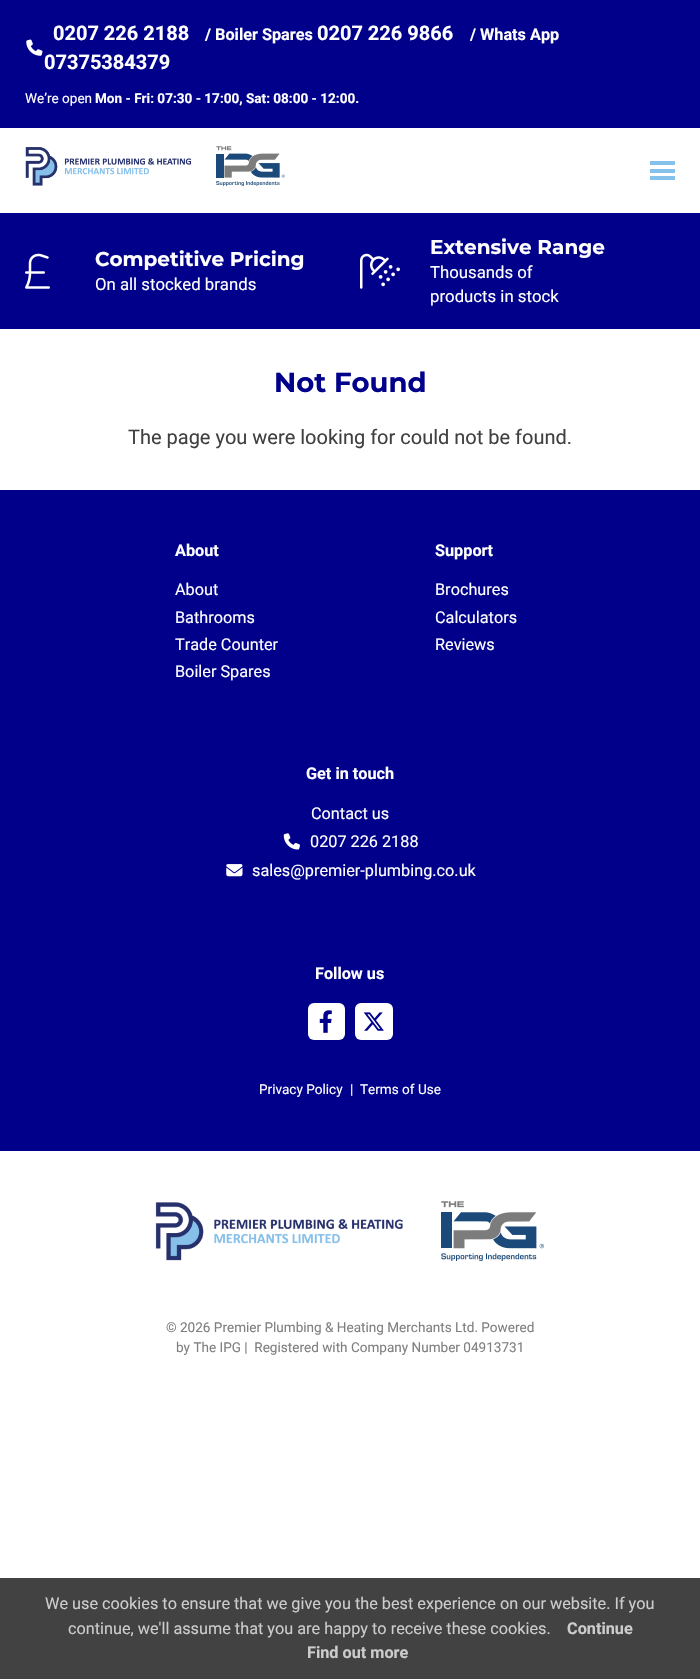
void draw(SkCanvas* canvas) {
  SkPaint paint;
  paint.setAntiAlias(true);
  auto face = [&](const char* family, int weight, float size, bool italic = false) {
    SkFontStyle style(weight, SkFontStyle::kNormal_Width,
      italic ? SkFontStyle::kItalic_Slant : SkFontStyle::kUpright_Slant);
    SkFont result(fontMgr->matchFamilyStyle(family, style), size);
    result.setSubpixel(true);
    return result;
  };
  auto paste = [&](const char* path, float x, float y, float w, float h) {
    auto image = SkImages::DeferredFromEncodedData(SkData::MakeFromFileName(path));
    canvas->drawImageRect(image, SkRect::MakeXYWH(x, y, w, h), SkSamplingOptions());
  };
  canvas->clear(0xffffffff);
  paint.setColor(0xff01008a);
  canvas->drawRect(SkRect::MakeXYWH(0, 0, 700, 128), paint);
  paste("img/1.png", 26, 39, 17, 17);
  paste("img/2.png", 25, 147, 167, 39);
  paste("img/3.png", 216, 146, 69, 40);
  {
    const struct { float x, y, w, h; SkColor color; } items[] = {
      {650, 169, 25, 4, 0xff86c1eb},
      {650, 161, 25, 4, 0xff86c1eb},
      {650, 176, 25, 4, 0xff86c1eb},
      {0, 213, 700, 116, 0xff01008a},
    };
    for (auto [x, y, w, h, color] : items) {
      paint.setColor(color);
      canvas->drawRect(SkRect::MakeXYWH(x, y, w, h), paint);
    }
  }
  paste("img/4.png", 25, 253, 25, 36);
  paste("img/5.png", 360, 253, 40, 36);
  canvas->drawRect(SkRect::MakeXYWH(0, 490, 700, 661), paint);
  paste("img/6.png", 283, 833, 17, 17);
  paste("img/7.png", 226, 864, 17, 13);
  paint.setColor(0xffffffff);
  canvas->drawRoundRect(SkRect::MakeXYWH(308, 1003, 37, 37), 6, 6, paint);
  paste("img/8.png", 319, 1010, 13, 23);
  canvas->drawRoundRect(SkRect::MakeXYWH(355, 1003, 38, 37), 6, 6, paint);
  paste("img/9.png", 363, 1012, 21, 19);
  paste("img/10.png", 155, 1202, 248, 59);
  paste("img/11.png", 441, 1201, 103, 60);
  paint.setColor(0xff424242);
  canvas->drawRect(SkRect::MakeXYWH(0, 1578, 700, 101), paint);
  auto f0 = face("Roboto", 700, 20);
  paint.setColor(0xffffffff);
  canvas->drawString("0207 226 2188", 53, 40, f0, paint);
  auto f1 = face("Roboto", 700, 16.25f);
  canvas->drawString("/ Boiler Spares", 205, 40, f1, paint);
  canvas->drawString("0207 226 9866", 317, 40, f0, paint);
  canvas->drawString("/ Whats App", 470, 40, f1, paint);
  canvas->drawString("07375384379", 44, 69, f0, paint);
  auto f2 = face("Roboto", 400, 13.55f);
  canvas->drawString("We’re open", 25, 103, f2, paint);
  auto f3 = face("Roboto", 700, 13.55f);
  canvas->drawString("Mon - Fri: 07:30 - 17:00, Sat: 08:00 - 12:00.", 95, 103, f3, paint);
  auto f4 = face("Montserrat", 700, 20);
  canvas->drawString("Competitive Pricing", 95, 266, f4, paint);
  auto f5 = face("Roboto", 400, 16.75f);
  canvas->drawString("On all stocked brands", 95, 290, f5, paint);
  canvas->drawString("Extensive Range", 430, 254, f4, paint);
  canvas->drawString("Thousands of", 430, 278, f5, paint);
  canvas->drawString("products in stock", 430, 302, f5, paint);
  auto f6 = face("Montserrat", 700, 27.5f);
  paint.setColor(0xff01008a);
  canvas->drawString("Not Found", 274, 392, f6, paint);
  auto f7 = face("Roboto", 400, 20);
  paint.setColor(0xff404040);
  canvas->drawString("The page you were looking for could not be found.", 128, 444, f7, paint);
  paint.setColor(0xffffffff);
  canvas->drawString("About", 175, 556, f1, paint);
  auto f8 = face("Roboto", 400, 16.25f);
  {
    const struct { const char* s; float x, y; } items[] = {
      {"About", 175, 595},
      {"Bathrooms", 175, 623},
      {"Trade Counter", 175, 650},
      {"Boiler Spares", 175, 677},
    };
    for (auto [s, x, y] : items) {
      canvas->drawString(s, x, y, f8, paint);
    }
  }
  canvas->drawString("Support", 435, 556, f1, paint);
  {
    const struct { const char* s; float x, y; } items[] = {
      {"Brochures", 435, 595},
      {"Calculators", 435, 623},
      {"Reviews", 435, 650},
    };
    for (auto [s, x, y] : items) {
      canvas->drawString(s, x, y, f8, paint);
    }
  }
  canvas->drawString("Get in touch", 306, 779, f1, paint);
  {
    const struct { const char* s; float x, y; } items[] = {
      {"Contact us", 311, 819},
      {"0207 226 2188", 310, 847},
      {"sales@premier-plumbing.co.uk", 252, 876},
    };
    for (auto [s, x, y] : items) {
      canvas->drawString(s, x, y, f8, paint);
    }
  }
  canvas->drawString("Follow us", 315, 979, f1, paint);
  {
    const struct { const char* s; float x, y; } items[] = {
      {"Privacy Policy", 259, 1094},
      {"|", 350, 1094},
      {"Terms of Use", 360, 1094},
    };
    for (auto [s, x, y] : items) {
      canvas->drawString(s, x, y, f2, paint);
    }
  }
  paint.setColor(0xff808080);
  canvas->drawString("© 2026 Premier Plumbing & Heating Merchants Ltd. Powered", 166, 1332, f2, paint);
  canvas->drawString("by The IPG |  Registered with Company Number 04913731", 176, 1352, f2, paint);
  paint.setColor(0xffcccccc);
  canvas->drawString("We use cookies to ensure that we give you the best experience on our website. If you", 45, 1609, f8, paint);
  canvas->drawString("continue, we'll assume that you are happy to receive these cookies.", 68, 1634, f8, paint);
  canvas->drawString("Continue", 567, 1634, f1, paint);
  canvas->drawString("Find out more", 307, 1658, f1, paint);
}
